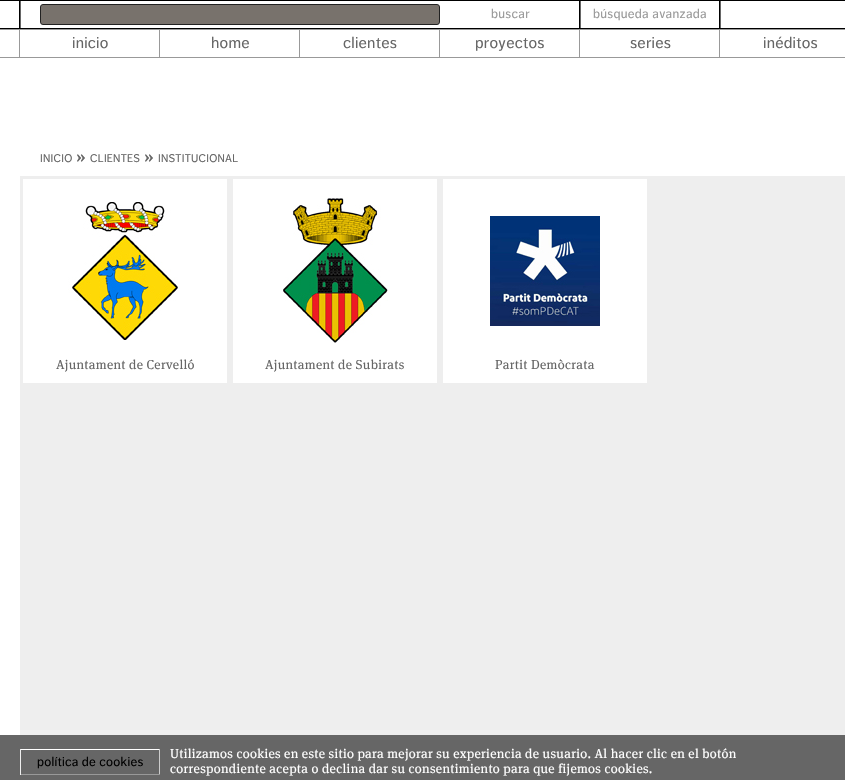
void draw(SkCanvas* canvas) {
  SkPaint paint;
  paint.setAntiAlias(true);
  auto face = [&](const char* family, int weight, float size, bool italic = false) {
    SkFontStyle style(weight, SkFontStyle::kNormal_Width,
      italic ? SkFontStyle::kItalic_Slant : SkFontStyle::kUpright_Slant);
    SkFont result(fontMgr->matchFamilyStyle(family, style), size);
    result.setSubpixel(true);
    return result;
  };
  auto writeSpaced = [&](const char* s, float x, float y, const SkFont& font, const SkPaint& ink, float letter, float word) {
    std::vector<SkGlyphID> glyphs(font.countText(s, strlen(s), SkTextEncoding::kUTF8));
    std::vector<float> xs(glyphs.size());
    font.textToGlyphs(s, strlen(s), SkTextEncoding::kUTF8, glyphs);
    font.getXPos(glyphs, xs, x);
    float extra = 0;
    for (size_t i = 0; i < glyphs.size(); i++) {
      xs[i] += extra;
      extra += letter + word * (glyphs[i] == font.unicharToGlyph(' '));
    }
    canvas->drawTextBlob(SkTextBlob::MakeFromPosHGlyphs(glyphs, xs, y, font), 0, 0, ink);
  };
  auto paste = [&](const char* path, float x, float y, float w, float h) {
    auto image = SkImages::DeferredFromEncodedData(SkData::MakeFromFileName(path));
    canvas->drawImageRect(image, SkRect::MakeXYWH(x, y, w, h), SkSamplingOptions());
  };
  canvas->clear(0xffffffff);
  {
    const struct { float x, y, w, h; SkColor color; } items[] = {
      {0, 0, 845, 1, 0xff000000},
      {0, 28, 845, 1, 0xff000000},
      {19, 1, 1, 27, 0xff000000},
      {20, 1, 1, 27, 0xff666666},
    };
    for (auto [x, y, w, h, color] : items) {
      paint.setColor(color);
      canvas->drawRect(SkRect::MakeXYWH(x, y, w, h), paint);
    }
  }
  paint.setColor(0xff78726c);
  canvas->drawRoundRect(SkRect::MakeXYWH(40.5f, 4.5f, 399, 20), 2.5f, 2.5f, paint);
  paint.setStroke(true);
  paint.setStrokeWidth(1);
  paint.setColor(0xff222222);
  canvas->drawRoundRect(SkRect::MakeXYWH(40.5f, 4.5f, 399, 20), 2.5f, 2.5f, paint);
  paint.setStroke(false);
  {
    const struct { float x, y, w, h; SkColor color; } items[] = {
      {579, 1, 1, 27, 0xff000000},
      {719, 1, 1, 27, 0xff000000},
      {580, 1, 1, 27, 0xff666666},
      {720, 1, 1, 27, 0xff666666},
      {0, 29, 845, 1, 0xff999999},
      {0, 57, 845, 1, 0xff999999},
      {19, 30, 1, 27, 0xff999999},
      {159, 30, 1, 27, 0xff999999},
      {299, 30, 1, 27, 0xff999999},
      {439, 30, 1, 27, 0xff999999},
      {579, 30, 1, 27, 0xff999999},
      {719, 30, 1, 27, 0xff999999},
      {20, 176, 825, 559, 0xffeeeeee},
      {23, 179, 204, 204, 0xffffffff},
    };
    for (auto [x, y, w, h, color] : items) {
      paint.setColor(color);
      canvas->drawRect(SkRect::MakeXYWH(x, y, w, h), paint);
    }
  }
  paste("img/1.png", 68, 202, 110, 138);
  canvas->drawRect(SkRect::MakeXYWH(233, 179, 204, 204), paint);
  paste("img/2.png", 283, 197, 105, 146);
  canvas->drawRect(SkRect::MakeXYWH(443, 179, 204, 204), paint);
  paste("img/3.png", 490, 216, 110, 112);
  {
    const struct { float x, y, w, h; SkColor color; } items[] = {
      {0, 735, 845, 45, 0xff666666},
      {20, 749, 140, 1, 0xffffffff},
      {159, 749, 1, 26, 0xffcccccc},
      {20, 774, 140, 1, 0xff999999},
      {20, 749, 1, 26, 0xffeeeeee},
    };
    for (auto [x, y, w, h, color] : items) {
      paint.setColor(color);
      canvas->drawRect(SkRect::MakeXYWH(x, y, w, h), paint);
    }
  }
  auto f0 = face("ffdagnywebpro", 400, 13);
  paint.setColor(0xff999999);
  writeSpaced("buscar", 491, 18, f0, paint, 0.3f, 0);
  writeSpaced("búsqueda avanzada", 593, 18, f0, paint, 0.3f, 0);
  auto f1 = face("ffdagnywebpro", 400, 16);
  paint.setColor(0xff666666);
  {
    const struct { const char* s; float x, y; } items[] = {
      {"inicio", 72, 48},
      {"home", 211, 48},
      {"clientes", 343, 48},
      {"proyectos", 475, 48},
      {"series", 630, 48},
      {"inéditos", 763, 48},
    };
    for (auto [s, x, y] : items) {
      writeSpaced(s, x, y, f1, paint, 0.25f, 0);
    }
  }
  auto f2 = face("ffdagnywebpro", 400, 11);
  writeSpaced("INICIO", 40, 162, f2, paint, 0.25f, 0);
  auto f3 = face("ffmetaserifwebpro", 700, 16);
  writeSpaced("»", 76, 162, f3, paint, 0.25f, 0);
  writeSpaced("CLIENTES", 90, 162, f2, paint, 0.25f, 0);
  writeSpaced("»", 144, 162, f3, paint, 0.25f, 0);
  writeSpaced("INSTITUCIONAL", 158, 162, f2, paint, 0.25f, 0);
  auto f4 = face("ffmetaserifwebpro", 500, 13);
  {
    const struct { const char* s; float x, y; } items[] = {
      {"Ajuntament de Cervelló", 56, 369},
      {"Ajuntament de Subirats", 265, 369},
      {"Partit Demòcrata", 495, 369},
    };
    for (auto [s, x, y] : items) {
      writeSpaced(s, x, y, f4, paint, 0.3f, 0);
    }
  }
  paint.setColor(0xff000000);
  writeSpaced("política de cookies", 37, 766, f0, paint, 0.25f, 0);
  paint.setColor(0xffffffff);
  writeSpaced("Utilizamos cookies en este sitio para mejorar su experiencia de usuario. Al hacer clic en el botón", 170, 758, f4, paint, 0.3f, 0);
  writeSpaced("correspondiente acepta o declina dar su consentimiento para que fijemos cookies.", 170, 773, f4, paint, 0.3f, 0);
}
